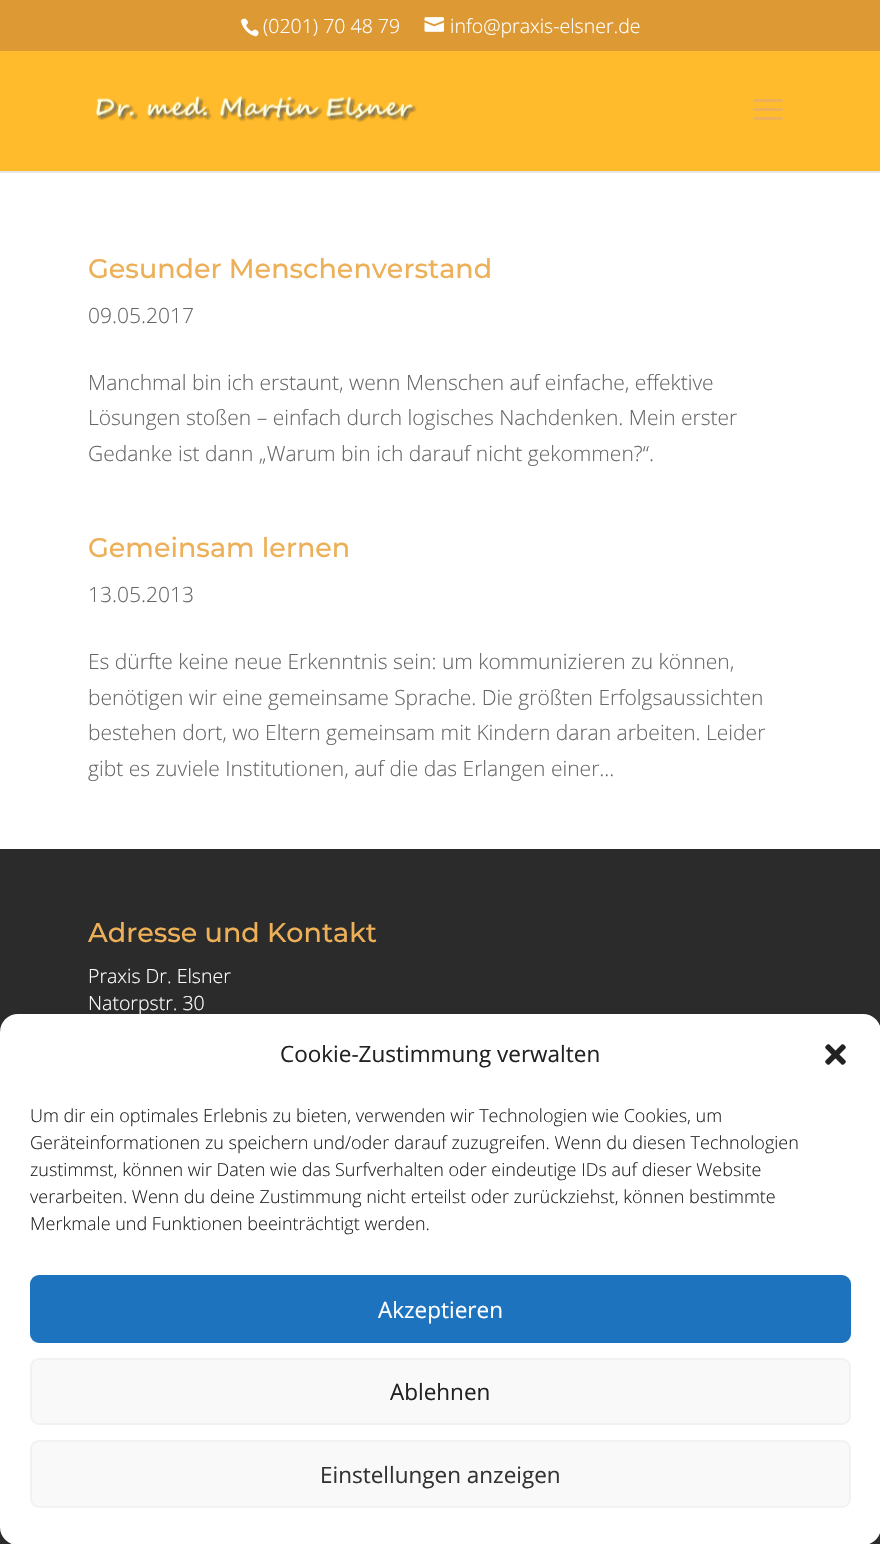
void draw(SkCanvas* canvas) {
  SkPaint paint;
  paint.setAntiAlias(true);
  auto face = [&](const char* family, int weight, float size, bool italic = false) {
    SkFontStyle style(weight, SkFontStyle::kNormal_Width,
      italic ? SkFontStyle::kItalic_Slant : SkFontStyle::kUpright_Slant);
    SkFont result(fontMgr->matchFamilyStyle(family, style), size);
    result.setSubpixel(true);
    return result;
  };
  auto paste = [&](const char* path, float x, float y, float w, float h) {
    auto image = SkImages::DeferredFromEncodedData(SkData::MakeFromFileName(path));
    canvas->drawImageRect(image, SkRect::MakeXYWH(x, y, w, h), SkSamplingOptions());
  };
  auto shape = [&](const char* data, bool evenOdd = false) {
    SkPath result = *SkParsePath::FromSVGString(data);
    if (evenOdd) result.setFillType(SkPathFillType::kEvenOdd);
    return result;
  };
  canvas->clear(0xffffffff);
  paint.setColor(0xffdd9933);
  canvas->drawRect(SkRect::MakeXYWH(0, 0, 880, 51), paint);
  paste("img/1.png", 240, 18, 19, 19);
  paste("img/2.png", 424, 17, 20, 15);
  paint.setColor(0xffe6e6e6);
  canvas->drawPath(shape("M0 171V173H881V53H880V171Z"), paint);
  paint.setColor(0xffffbb2b);
  canvas->drawRect(SkRect::MakeXYWH(0, 51, 880, 120), paint);
  paste("img/3.png", 96, 95, 321, 28);
  paste("img/4.png", 753, 99, 30, 21);
  paint.setColor(0xff2b2b2b);
  canvas->drawRect(SkRect::MakeXYWH(0, 849, 880, 695), paint);
  paint.setColor(0xffffffff);
  canvas->drawRoundRect(SkRect::MakeXYWH(0, 1014, 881, 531), 18, 18, paint);
  paste("img/5.png", 825, 1044, 21, 21);
  paint.setColor(0xff1e73be);
  canvas->drawRoundRect(SkRect::MakeXYWH(31, 1276, 819, 66), 8, 8, paint);
  paint.setStroke(true);
  paint.setStrokeWidth(2);
  canvas->drawRoundRect(SkRect::MakeXYWH(31, 1276, 819, 66), 8, 8, paint);
  paint.setStroke(false);
  paint.setColor(0xfff9f9f9);
  canvas->drawRoundRect(SkRect::MakeXYWH(31, 1359, 819, 65), 8, 8, paint);
  paint.setStroke(true);
  paint.setColor(0xfff2f2f2);
  canvas->drawRoundRect(SkRect::MakeXYWH(31, 1359, 819, 65), 8, 8, paint);
  paint.setStroke(false);
  paint.setColor(0xfff9f9f9);
  canvas->drawRoundRect(SkRect::MakeXYWH(31, 1441, 819, 66), 8, 8, paint);
  paint.setStroke(true);
  paint.setColor(0xfff2f2f2);
  canvas->drawRoundRect(SkRect::MakeXYWH(31, 1441, 819, 66), 8, 8, paint);
  auto f0 = face("Open Sans", 300, 19.5f);
  paint.setStroke(false);
  paint.setColor(0xffffffff);
  canvas->drawString("(0201) 70 48 79", 263, 33, f0, paint);
  canvas->drawString("info@praxis-elsner.de", 450, 33, f0, paint);
  auto f1 = face("Montserrat", 500, 27);
  paint.setColor(0xffedb059);
  canvas->drawString("Gesunder Menschenverstand", 88, 278, f1, paint);
  auto f2 = face("Open Sans", 300, 21);
  paint.setColor(0xff666666);
  {
    const struct { const char* s; float x, y; } items[] = {
      {"09.05.2017", 88, 323},
      {"Manchmal bin ich erstaunt, wenn Menschen auf einfache, effektive", 88, 390},
      {"Lösungen stoßen – einfach durch logisches Nachdenken. Mein erster", 88, 425},
      {"Gedanke ist dann „Warum bin ich darauf nicht gekommen?“.", 88, 461},
    };
    for (auto [s, x, y] : items) {
      canvas->drawString(s, x, y, f2, paint);
    }
  }
  paint.setColor(0xffedb059);
  canvas->drawString("Gemeinsam lernen", 88, 557, f1, paint);
  paint.setColor(0xff666666);
  {
    const struct { const char* s; float x, y; } items[] = {
      {"13.05.2013", 88, 602},
      {"Es dürfte keine neue Erkenntnis sein: um kommunizieren zu können,", 88, 669},
      {"benötigen wir eine gemeinsame Sprache. Die größten Erfolgsaussichten", 88, 705},
      {"bestehen dort, wo Eltern gemeinsam mit Kindern daran arbeiten. Leider", 88, 740},
      {"gibt es zuviele Institutionen, auf die das Erlangen einer...", 88, 776},
    };
    for (auto [s, x, y] : items) {
      canvas->drawString(s, x, y, f2, paint);
    }
  }
  paint.setColor(0xffedb059);
  canvas->drawString("Adresse und Kontakt", 88, 942, f1, paint);
  paint.setColor(0xffffffff);
  canvas->drawString("Praxis Dr. Elsner", 88, 983, f0, paint);
  canvas->drawString("Natorpstr. 30", 88, 1010, f0, paint);
  auto f3 = face("Open Sans", 400, 22.5f);
  paint.setColor(0xff222222);
  canvas->drawString("Cookie-Zustimmung verwalten", 280, 1062, f3, paint);
  auto f4 = face("Open Sans", 300, 18);
  {
    const struct { const char* s; float x, y; } items[] = {
      {"Um dir ein optimales Erlebnis zu bieten, verwenden wir Technologien wie Cookies, um", 30, 1122},
      {"Geräteinformationen zu speichern und/oder darauf zuzugreifen. Wenn du diesen Technologien", 30, 1149},
      {"zustimmst, können wir Daten wie das Surfverhalten oder eindeutige IDs auf dieser Website", 30, 1176},
      {"verarbeiten. Wenn du deine Zustimmung nicht erteilst oder zurückziehst, können bestimmte", 30, 1203},
      {"Merkmale und Funktionen beeinträchtigt werden.", 30, 1230},
    };
    for (auto [s, x, y] : items) {
      canvas->drawString(s, x, y, f4, paint);
    }
  }
  paint.setColor(0xffffffff);
  canvas->drawString("Akzeptieren", 378, 1318, f3, paint);
  paint.setColor(0xff222222);
  canvas->drawString("Ablehnen", 390, 1400, f3, paint);
  paint.setColor(0xff333333);
  canvas->drawString("Einstellungen anzeigen", 320, 1483, f3, paint);
}
